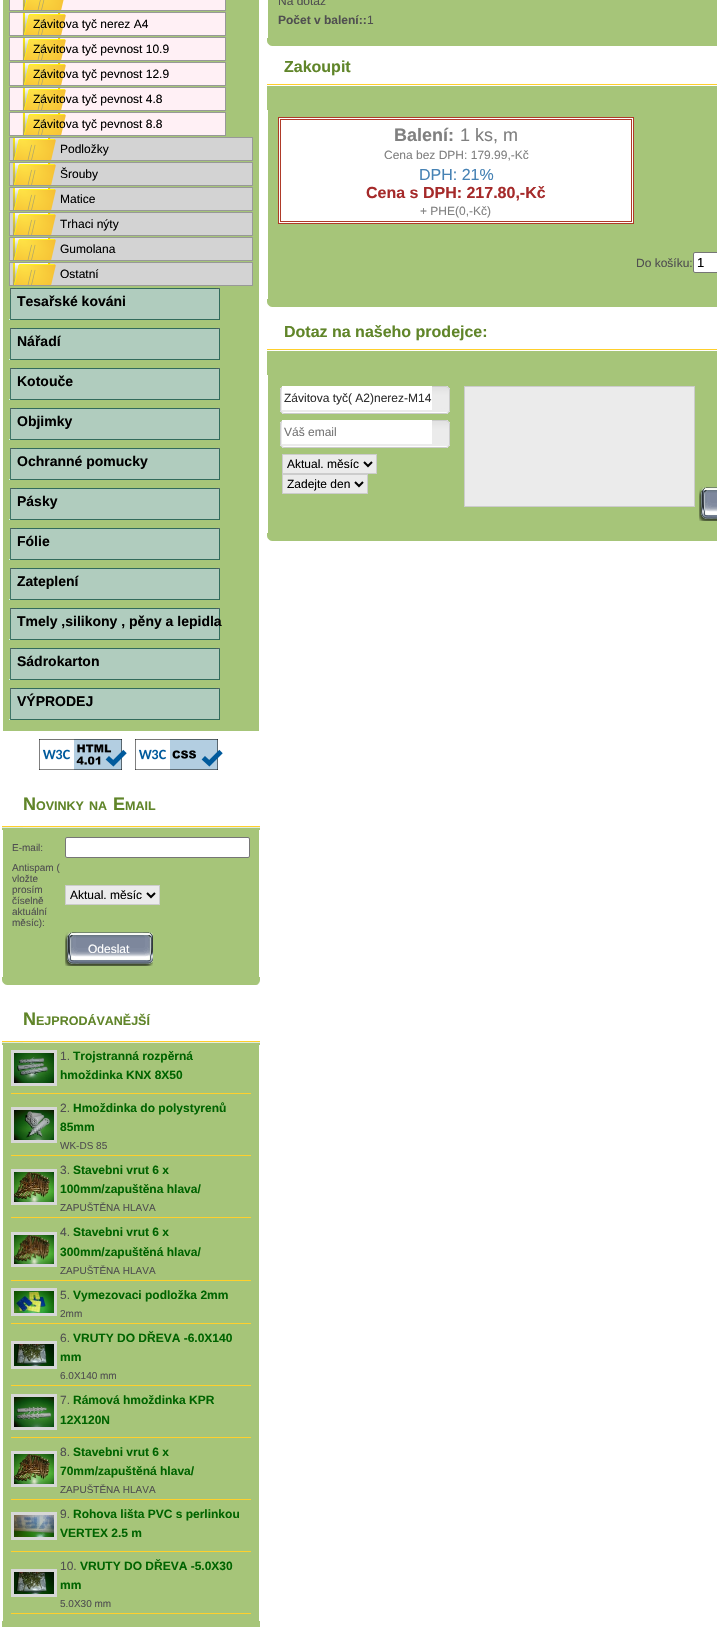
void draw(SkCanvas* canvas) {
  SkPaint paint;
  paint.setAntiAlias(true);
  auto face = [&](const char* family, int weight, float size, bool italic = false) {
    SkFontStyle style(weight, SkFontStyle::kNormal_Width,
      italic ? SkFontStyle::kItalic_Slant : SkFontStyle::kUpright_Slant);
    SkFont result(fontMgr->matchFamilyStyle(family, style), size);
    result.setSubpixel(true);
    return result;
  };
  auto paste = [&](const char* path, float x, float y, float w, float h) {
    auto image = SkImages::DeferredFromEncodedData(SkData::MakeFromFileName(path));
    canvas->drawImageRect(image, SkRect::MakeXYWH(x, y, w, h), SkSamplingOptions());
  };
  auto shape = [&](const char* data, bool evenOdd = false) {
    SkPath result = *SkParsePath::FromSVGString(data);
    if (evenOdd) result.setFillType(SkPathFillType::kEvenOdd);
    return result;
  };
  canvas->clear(0xffffffff);
  paint.setColor(0xffa6c579);
  canvas->drawRect(SkRect::MakeXYWH(3, 0, 256, 731), paint);
  paint.setColor(0xfffff0f5);
  canvas->drawRect(SkRect::MakeXYWH(10, 0, 215, 10), paint);
  paste("img/1.png", 22, 0, 42, 10);
  paint.setStroke(true);
  paint.setStrokeWidth(1);
  paint.setColor(0xff989898);
  canvas->drawRect(SkRect::MakeXYWH(9.5f, -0.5f, 216, 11), paint);
  paint.setStroke(false);
  paint.setColor(0xfffff0f5);
  canvas->drawRect(SkRect::MakeXYWH(10, 13, 215, 22), paint);
  paste("img/2.png", 22, 13, 44, 22);
  paint.setStroke(true);
  paint.setColor(0xff989898);
  canvas->drawRect(SkRect::MakeXYWH(9.5f, 12.5f, 216, 23), paint);
  paint.setStroke(false);
  paint.setColor(0xfffff0f5);
  canvas->drawRect(SkRect::MakeXYWH(10, 38, 215, 22), paint);
  paste("img/2.png", 22, 38, 44, 22);
  paint.setStroke(true);
  paint.setColor(0xff989898);
  canvas->drawRect(SkRect::MakeXYWH(9.5f, 37.5f, 216, 23), paint);
  paint.setStroke(false);
  paint.setColor(0xfffff0f5);
  canvas->drawRect(SkRect::MakeXYWH(10, 63, 215, 22), paint);
  paste("img/2.png", 22, 63, 44, 22);
  paint.setStroke(true);
  paint.setColor(0xff989898);
  canvas->drawRect(SkRect::MakeXYWH(9.5f, 62.5f, 216, 23), paint);
  paint.setStroke(false);
  paint.setColor(0xfffff0f5);
  canvas->drawRect(SkRect::MakeXYWH(10, 88, 215, 22), paint);
  paste("img/2.png", 22, 88, 44, 22);
  paint.setStroke(true);
  paint.setColor(0xff989898);
  canvas->drawRect(SkRect::MakeXYWH(9.5f, 87.5f, 216, 23), paint);
  paint.setStroke(false);
  paint.setColor(0xfffff0f5);
  canvas->drawRect(SkRect::MakeXYWH(10, 113, 215, 22), paint);
  paste("img/2.png", 22, 113, 44, 22);
  paint.setStroke(true);
  paint.setColor(0xff989898);
  canvas->drawRect(SkRect::MakeXYWH(9.5f, 112.5f, 216, 23), paint);
  paint.setStroke(false);
  paint.setColor(0xffd3d3d3);
  canvas->drawRect(SkRect::MakeXYWH(10, 138, 242, 22), paint);
  paste("img/3.png", 12, 138, 44, 22);
  paint.setStroke(true);
  paint.setColor(0xff989898);
  canvas->drawRect(SkRect::MakeXYWH(9.5f, 137.5f, 243, 23), paint);
  paint.setStroke(false);
  paint.setColor(0xffd3d3d3);
  canvas->drawRect(SkRect::MakeXYWH(10, 163, 242, 22), paint);
  paste("img/3.png", 12, 163, 44, 22);
  paint.setStroke(true);
  paint.setColor(0xff989898);
  canvas->drawRect(SkRect::MakeXYWH(9.5f, 162.5f, 243, 23), paint);
  paint.setStroke(false);
  paint.setColor(0xffd3d3d3);
  canvas->drawRect(SkRect::MakeXYWH(10, 188, 242, 22), paint);
  paste("img/3.png", 12, 188, 44, 22);
  paint.setStroke(true);
  paint.setColor(0xff989898);
  canvas->drawRect(SkRect::MakeXYWH(9.5f, 187.5f, 243, 23), paint);
  paint.setStroke(false);
  paint.setColor(0xffd3d3d3);
  canvas->drawRect(SkRect::MakeXYWH(10, 213, 242, 22), paint);
  paste("img/3.png", 12, 213, 44, 22);
  paint.setStroke(true);
  paint.setColor(0xff989898);
  canvas->drawRect(SkRect::MakeXYWH(9.5f, 212.5f, 243, 23), paint);
  paint.setStroke(false);
  paint.setColor(0xffd3d3d3);
  canvas->drawRect(SkRect::MakeXYWH(10, 238, 242, 22), paint);
  paste("img/3.png", 12, 238, 44, 22);
  paint.setStroke(true);
  paint.setColor(0xff989898);
  canvas->drawRect(SkRect::MakeXYWH(9.5f, 237.5f, 243, 23), paint);
  paint.setStroke(false);
  paint.setColor(0xffd3d3d3);
  canvas->drawRect(SkRect::MakeXYWH(10, 263, 242, 22), paint);
  paste("img/3.png", 12, 263, 44, 22);
  paint.setStroke(true);
  paint.setColor(0xff989898);
  canvas->drawRect(SkRect::MakeXYWH(9.5f, 262.5f, 243, 23), paint);
  paste("img/4.png", 9, 288, 211, 32);
  paste("img/4.png", 9, 328, 211, 32);
  paste("img/4.png", 9, 368, 211, 32);
  paste("img/4.png", 9, 408, 211, 32);
  paste("img/4.png", 9, 448, 211, 32);
  paste("img/4.png", 9, 488, 211, 32);
  paste("img/4.png", 9, 528, 211, 32);
  paste("img/4.png", 9, 568, 211, 32);
  paste("img/4.png", 9, 608, 211, 32);
  paste("img/4.png", 9, 648, 211, 32);
  paste("img/4.png", 9, 688, 211, 32);
  paste("img/5.png", 39, 739, 88, 31);
  paste("img/6.png", 135, 739, 88, 31);
  paste("img/7.png", 23, 826, 207, 4);
  paste("img/8.png", 2, 826, 21, 4);
  paste("img/9.png", 230, 826, 30, 4);
  paint.setStroke(false);
  paint.setColor(0xffa6c579);
  canvas->drawRect(SkRect::MakeXYWH(3, 830, 256, 147), paint);
  paint.setColor(0xffffffff);
  canvas->drawRoundRect(SkRect::MakeXYWH(65.5f, 837.5f, 184, 20), 1.5f, 1.5f, paint);
  paint.setStroke(true);
  paint.setColor(0xff767676);
  canvas->drawRoundRect(SkRect::MakeXYWH(65.5f, 837.5f, 184, 20), 1.5f, 1.5f, paint);
  paint.setStroke(false);
  paint.setColor(0xffebebeb);
  canvas->drawRect(SkRect::MakeXYWH(65.5f, 885.5f, 94, 19), paint);
  paint.setStroke(true);
  paint.setColor(0xffcccccc);
  canvas->drawRect(SkRect::MakeXYWH(65.5f, 885.5f, 94, 19), paint);
  paint.setStrokeWidth(2);
  paint.setColor(0xff000000);
  canvas->drawPath(shape("M147 893L151 897L155 893"), paint);
  paste("img/10.png", 65, 932, 88, 34);
  paste("img/11.png", 2, 977, 21, 8);
  paint.setStroke(false);
  paint.setColor(0xffa6c579);
  canvas->drawRect(SkRect::MakeXYWH(23, 977, 207, 8), paint);
  paste("img/12.png", 230, 977, 30, 8);
  paste("img/7.png", 23, 1041, 207, 4);
  paste("img/8.png", 2, 1041, 21, 4);
  paste("img/9.png", 230, 1041, 30, 4);
  canvas->drawRect(SkRect::MakeXYWH(3, 1045, 256, 576), paint);
  paint.setStroke(true);
  paint.setStrokeWidth(3);
  paint.setColor(0xffd7d7d7);
  canvas->drawRect(SkRect::MakeXYWH(12.5f, 1051.5f, 43, 33), paint);
  paste("img/13.png", 14, 1053, 40, 30);
  paint.setStroke(false);
  paint.setColor(0xffffd02c);
  canvas->drawRect(SkRect::MakeXYWH(11, 1093, 240, 1), paint);
  paint.setStroke(true);
  paint.setColor(0xffd7d7d7);
  canvas->drawRect(SkRect::MakeXYWH(12.5f, 1108.5f, 43, 33), paint);
  paste("img/14.png", 14, 1110, 40, 30);
  paint.setStroke(false);
  paint.setColor(0xffffd02c);
  canvas->drawRect(SkRect::MakeXYWH(11, 1155, 240, 1), paint);
  paint.setStroke(true);
  paint.setColor(0xffd7d7d7);
  canvas->drawRect(SkRect::MakeXYWH(12.5f, 1170.5f, 43, 33), paint);
  paste("img/15.png", 14, 1172, 40, 30);
  paint.setStroke(false);
  paint.setColor(0xffffd02c);
  canvas->drawRect(SkRect::MakeXYWH(11, 1217, 240, 1), paint);
  paint.setStroke(true);
  paint.setColor(0xffd7d7d7);
  canvas->drawRect(SkRect::MakeXYWH(12.5f, 1233.5f, 43, 32), paint);
  paste("img/16.png", 14, 1235, 40, 29);
  paint.setStroke(false);
  paint.setColor(0xffffd02c);
  canvas->drawRect(SkRect::MakeXYWH(11, 1280, 240, 1), paint);
  paint.setStroke(true);
  paint.setColor(0xffd7d7d7);
  canvas->drawRect(SkRect::MakeXYWH(12.5f, 1289.5f, 43, 25), paint);
  paste("img/17.png", 14, 1291, 40, 22);
  paint.setStroke(false);
  paint.setColor(0xffffd02c);
  canvas->drawRect(SkRect::MakeXYWH(11, 1323, 240, 1), paint);
  paint.setStroke(true);
  paint.setColor(0xffd7d7d7);
  canvas->drawRect(SkRect::MakeXYWH(12.5f, 1342.5f, 43, 25), paint);
  paste("img/18.png", 14, 1344, 40, 22);
  paint.setStroke(false);
  paint.setColor(0xffffd02c);
  canvas->drawRect(SkRect::MakeXYWH(11, 1385, 240, 1), paint);
  paint.setStroke(true);
  paint.setColor(0xffd7d7d7);
  canvas->drawRect(SkRect::MakeXYWH(12.5f, 1395.5f, 43, 33), paint);
  paste("img/19.png", 14, 1397, 40, 30);
  paint.setStroke(false);
  paint.setColor(0xffffd02c);
  canvas->drawRect(SkRect::MakeXYWH(11, 1437, 240, 1), paint);
  paint.setStroke(true);
  paint.setColor(0xffd7d7d7);
  canvas->drawRect(SkRect::MakeXYWH(12.5f, 1452.5f, 43, 33), paint);
  paste("img/15.png", 14, 1454, 40, 30);
  paint.setStroke(false);
  paint.setColor(0xffffd02c);
  canvas->drawRect(SkRect::MakeXYWH(11, 1499, 240, 1), paint);
  paint.setStroke(true);
  paint.setColor(0xffd7d7d7);
  canvas->drawRect(SkRect::MakeXYWH(12.5f, 1513.5f, 43, 25), paint);
  paste("img/20.png", 14, 1515, 40, 22);
  paint.setStroke(false);
  paint.setColor(0xffffd02c);
  canvas->drawRect(SkRect::MakeXYWH(11, 1551, 240, 1), paint);
  paint.setStroke(true);
  paint.setColor(0xffd7d7d7);
  canvas->drawRect(SkRect::MakeXYWH(12.5f, 1570.5f, 43, 25), paint);
  paste("img/18.png", 14, 1572, 40, 22);
  paint.setStroke(false);
  {
    const struct { float x, y, w, h; SkColor color; } items[] = {
      {11, 1613, 240, 1, 0xffffd02c},
      {2, 1621, 258, 6, 0xffa6c579},
      {268, 0, 449, 38, 0xffa6c579},
    };
    for (auto [x, y, w, h, color] : items) {
      paint.setColor(color);
      canvas->drawRect(SkRect::MakeXYWH(x, y, w, h), paint);
    }
  }
  paste("img/21.png", 267, 38, 13, 8);
  canvas->drawRect(SkRect::MakeXYWH(280, 38, 437, 8), paint);
  paste("img/22.png", 280, 84, 437, 26);
  paste("img/23.png", 267, 84, 13, 26);
  canvas->drawRect(SkRect::MakeXYWH(268, 110, 449, 189), paint);
  paint.setColor(0xffffffff);
  canvas->drawRect(SkRect::MakeXYWH(278.5f, 117.5f, 355, 106), paint);
  paint.setStroke(true);
  paint.setStrokeWidth(1);
  paint.setColor(0xffaf3a28);
  canvas->drawRect(SkRect::MakeXYWH(278.5f, 117.5f, 355, 106), paint);
  canvas->drawRect(SkRect::MakeXYWH(280.5f, 119.5f, 351, 102), paint);
  paint.setStroke(false);
  paint.setColor(0xffffffff);
  canvas->drawRoundRect(SkRect::MakeXYWH(693.5f, 252.5f, 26, 20), 1.5f, 1.5f, paint);
  paint.setStroke(true);
  paint.setColor(0xff767676);
  canvas->drawRoundRect(SkRect::MakeXYWH(693.5f, 252.5f, 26, 20), 1.5f, 1.5f, paint);
  paste("img/21.png", 267, 299, 13, 8);
  paint.setStroke(false);
  paint.setColor(0xffa6c579);
  canvas->drawRect(SkRect::MakeXYWH(280, 299, 437, 8), paint);
  paste("img/22.png", 280, 349, 437, 26);
  paste("img/23.png", 267, 349, 13, 26);
  canvas->drawRect(SkRect::MakeXYWH(268, 375, 449, 158), paint);
  paste("img/24.png", 280, 386, 170, 28);
  paint.setColor(0xffffffff);
  canvas->drawRect(SkRect::MakeXYWH(282, 386, 150, 24), paint);
  paint.setColor(0xffebebeb);
  canvas->drawRect(SkRect::MakeXYWH(464.5f, 386.5f, 230, 120), paint);
  paint.setStroke(true);
  paint.setColor(0xffcccccc);
  canvas->drawRect(SkRect::MakeXYWH(464.5f, 386.5f, 230, 120), paint);
  paste("img/25.png", 699, 487, 18, 34);
  paste("img/24.png", 280, 420, 170, 28);
  paint.setStroke(false);
  paint.setColor(0xffffffff);
  canvas->drawRect(SkRect::MakeXYWH(282, 420, 150, 24), paint);
  paint.setColor(0xffebebeb);
  canvas->drawRect(SkRect::MakeXYWH(282.5f, 454.5f, 94, 19), paint);
  paint.setStroke(true);
  paint.setColor(0xffcccccc);
  canvas->drawRect(SkRect::MakeXYWH(282.5f, 454.5f, 94, 19), paint);
  paint.setStrokeWidth(2);
  paint.setColor(0xff000000);
  canvas->drawPath(shape("M364 462L368 466L372 462"), paint);
  paint.setStroke(false);
  paint.setColor(0xffebebeb);
  canvas->drawRect(SkRect::MakeXYWH(282.5f, 474.5f, 85, 19), paint);
  paint.setStroke(true);
  paint.setStrokeWidth(1);
  paint.setColor(0xffcccccc);
  canvas->drawRect(SkRect::MakeXYWH(282.5f, 474.5f, 85, 19), paint);
  paint.setStrokeWidth(2);
  paint.setColor(0xff000000);
  canvas->drawPath(shape("M355 482L359 486L363 482"), paint);
  paste("img/21.png", 267, 533, 13, 8);
  paint.setStroke(false);
  paint.setColor(0xffa6c579);
  canvas->drawRect(SkRect::MakeXYWH(280, 533, 437, 8), paint);
  auto f0 = face("Liberation Sans", 400, 12);
  paint.setColor(0xff000000);
  {
    const struct { const char* s; float x, y; } items[] = {
      {"Závitova tyč nerez A4", 33, 28},
      {"Závitova tyč pevnost 10.9", 33, 53},
      {"Závitova tyč pevnost 12.9", 33, 78},
      {"Závitova tyč pevnost 4.8", 33, 103},
      {"Závitova tyč pevnost 8.8", 33, 128},
      {"Podložky", 60, 153},
      {"Šrouby", 60, 178},
      {"Matice", 60, 203},
      {"Trhaci nýty", 60, 228},
      {"Gumolana", 60, 253},
      {"Ostatní", 60, 278},
    };
    for (auto [s, x, y] : items) {
      canvas->drawString(s, x, y, f0, paint);
    }
  }
  auto f1 = face("Liberation Sans", 700, 14);
  {
    const struct { const char* s; float x, y; } items[] = {
      {"Tesařské kováni", 17, 306},
      {"Nářadí", 17, 346},
      {"Kotouče", 17, 386},
      {"Objimky", 17, 426},
      {"Ochranné pomucky", 17, 466},
      {"Pásky", 17, 506},
      {"Fólie", 17, 546},
      {"Zateplení", 17, 586},
      {"Tmely ,silikony , pěny a lepidla", 17, 626},
      {"Sádrokarton", 17, 666},
      {"VÝPRODEJ", 17, 706},
    };
    for (auto [s, x, y] : items) {
      canvas->drawString(s, x, y, f1, paint);
    }
  }
  auto f2 = face("Liberation Sans", 700, 18);
  paint.setColor(0xff608529);
  canvas->drawString("N", 23, 810, f2, paint);
  auto f3 = face("Liberation Sans", 700, 12.5f);
  canvas->drawString("OVINKY", 36, 810, f3, paint);
  canvas->drawString("NA", 89, 810, f3, paint);
  canvas->drawString("E", 113, 810, f2, paint);
  canvas->drawString("MAIL", 125, 810, f3, paint);
  auto f4 = face("Liberation Sans", 400, 10);
  paint.setColor(0xff505050);
  {
    const struct { const char* s; float x, y; } items[] = {
      {"E-mail:", 12, 851},
      {"Antispam (", 12, 871},
      {"vložte", 12, 882},
      {"prosím", 12, 893},
      {"číselně", 12, 904},
      {"aktuální", 12, 915},
      {"měsíc):", 12, 926},
    };
    for (auto [s, x, y] : items) {
      canvas->drawString(s, x, y, f4, paint);
    }
  }
  paint.setColor(0xff000000);
  canvas->drawString("Aktual. měsíc", 70, 899, f0, paint);
  paint.setColor(0xffffffff);
  canvas->drawString("Odeslat", 88, 953, f0, paint);
  paint.setColor(0xff608529);
  canvas->drawString("N", 23, 1025, f2, paint);
  canvas->drawString("EJPRODÁVANĚJŠÍ", 36, 1025, f3, paint);
  paint.setColor(0xff505050);
  canvas->drawString("1.", 60, 1060, f0, paint);
  auto f5 = face("Liberation Sans", 700, 12);
  paint.setColor(0xff006400);
  canvas->drawString("Trojstranná rozpěrná", 73, 1060, f5, paint);
  canvas->drawString("hmoždinka KNX 8X50", 60, 1079, f5, paint);
  paint.setColor(0xff505050);
  canvas->drawString("2.", 60, 1112, f0, paint);
  paint.setColor(0xff006400);
  canvas->drawString("Hmoždinka do polystyrenů", 73, 1112, f5, paint);
  canvas->drawString("85mm", 60, 1131, f5, paint);
  paint.setColor(0xff505050);
  canvas->drawString("WK-DS 85", 60, 1149, f4, paint);
  canvas->drawString("3.", 60, 1174, f0, paint);
  paint.setColor(0xff006400);
  canvas->drawString("Stavebni vrut 6 x", 73, 1174, f5, paint);
  canvas->drawString("100mm/zapuštěna hlava/", 60, 1193, f5, paint);
  paint.setColor(0xff505050);
  canvas->drawString("ZAPUŠTĚNA HLAVA", 60, 1211, f4, paint);
  canvas->drawString("4.", 60, 1236, f0, paint);
  paint.setColor(0xff006400);
  canvas->drawString("Stavebni vrut 6 x", 73, 1236, f5, paint);
  canvas->drawString("300mm/zapuštěná hlava/", 60, 1256, f5, paint);
  paint.setColor(0xff505050);
  canvas->drawString("ZAPUŠTĚNA HLAVA", 60, 1274, f4, paint);
  canvas->drawString("5.", 60, 1299, f0, paint);
  paint.setColor(0xff006400);
  canvas->drawString("Vymezovaci podložka 2mm", 73, 1299, f5, paint);
  paint.setColor(0xff505050);
  canvas->drawString("2mm", 60, 1317, f4, paint);
  canvas->drawString("6.", 60, 1342, f0, paint);
  paint.setColor(0xff006400);
  canvas->drawString("VRUTY DO DŘEVA -6.0X140", 73, 1342, f5, paint);
  canvas->drawString("mm", 60, 1361, f5, paint);
  paint.setColor(0xff505050);
  canvas->drawString("6.0X140 mm", 60, 1379, f4, paint);
  canvas->drawString("7.", 60, 1404, f0, paint);
  paint.setColor(0xff006400);
  canvas->drawString("Rámová hmoždinka KPR", 73, 1404, f5, paint);
  canvas->drawString("12X120N", 60, 1424, f5, paint);
  paint.setColor(0xff505050);
  canvas->drawString("8.", 60, 1456, f0, paint);
  paint.setColor(0xff006400);
  canvas->drawString("Stavebni vrut 6 x", 73, 1456, f5, paint);
  canvas->drawString("70mm/zapuštěná hlava/", 60, 1475, f5, paint);
  paint.setColor(0xff505050);
  canvas->drawString("ZAPUŠTĚNA HLAVA", 60, 1493, f4, paint);
  canvas->drawString("9.", 60, 1518, f0, paint);
  paint.setColor(0xff006400);
  canvas->drawString("Rohova lišta PVC s perlinkou", 73, 1518, f5, paint);
  canvas->drawString("VERTEX 2.5 m", 60, 1537, f5, paint);
  paint.setColor(0xff505050);
  canvas->drawString("10.", 60, 1570, f0, paint);
  paint.setColor(0xff006400);
  canvas->drawString("VRUTY DO DŘEVA -5.0X30", 80, 1570, f5, paint);
  canvas->drawString("mm", 60, 1589, f5, paint);
  paint.setColor(0xff505050);
  canvas->drawString("5.0X30 mm", 60, 1607, f4, paint);
  canvas->drawString("Na dotaz", 278, 5, f0, paint);
  canvas->drawString("Počet v balení::", 278, 24, f5, paint);
  canvas->drawString("1", 367, 24, f0, paint);
  auto f6 = face("Liberation Sans", 700, 16);
  paint.setColor(0xff608529);
  canvas->drawString("Zakoupit", 284, 72, f6, paint);
  paint.setColor(0xff808080);
  canvas->drawString("Balení:", 394, 141, f2, paint);
  auto f7 = face("Liberation Sans", 400, 18);
  canvas->drawString("1 ks, m", 460, 141, f7, paint);
  canvas->drawString("Cena bez DPH: 179.99,-Kč", 384, 159, f0, paint);
  auto f8 = face("Liberation Sans", 400, 16);
  paint.setColor(0xff4682b4);
  canvas->drawString("DPH: 21%", 419, 180, f8, paint);
  paint.setColor(0xffa52a2a);
  canvas->drawString("Cena s DPH: 217.80,-Kč", 366, 198, f6, paint);
  paint.setColor(0xff808080);
  canvas->drawString("+ PHE(0,-Kč)", 420, 215, f0, paint);
  paint.setColor(0xff505050);
  canvas->drawString("Do košíku:", 636, 267, f0, paint);
  auto f9 = face("Liberation Sans", 400, 13);
  paint.setColor(0xff000000);
  canvas->drawString("1", 697, 267, f9, paint);
  paint.setColor(0xff608529);
  canvas->drawString("Dotaz na našeho prodejce:", 284, 337, f6, paint);
  paint.setColor(0xff303030);
  canvas->drawString("Závitova tyč( A2)nerez-M14", 284, 402, f0, paint);
  paint.setColor(0xff757575);
  canvas->drawString("Váš email", 284, 436, f0, paint);
  paint.setColor(0xff000000);
  canvas->drawString("Aktual. měsíc", 287, 468, f0, paint);
  canvas->drawString("Zadejte den", 287, 488, f0, paint);
}
